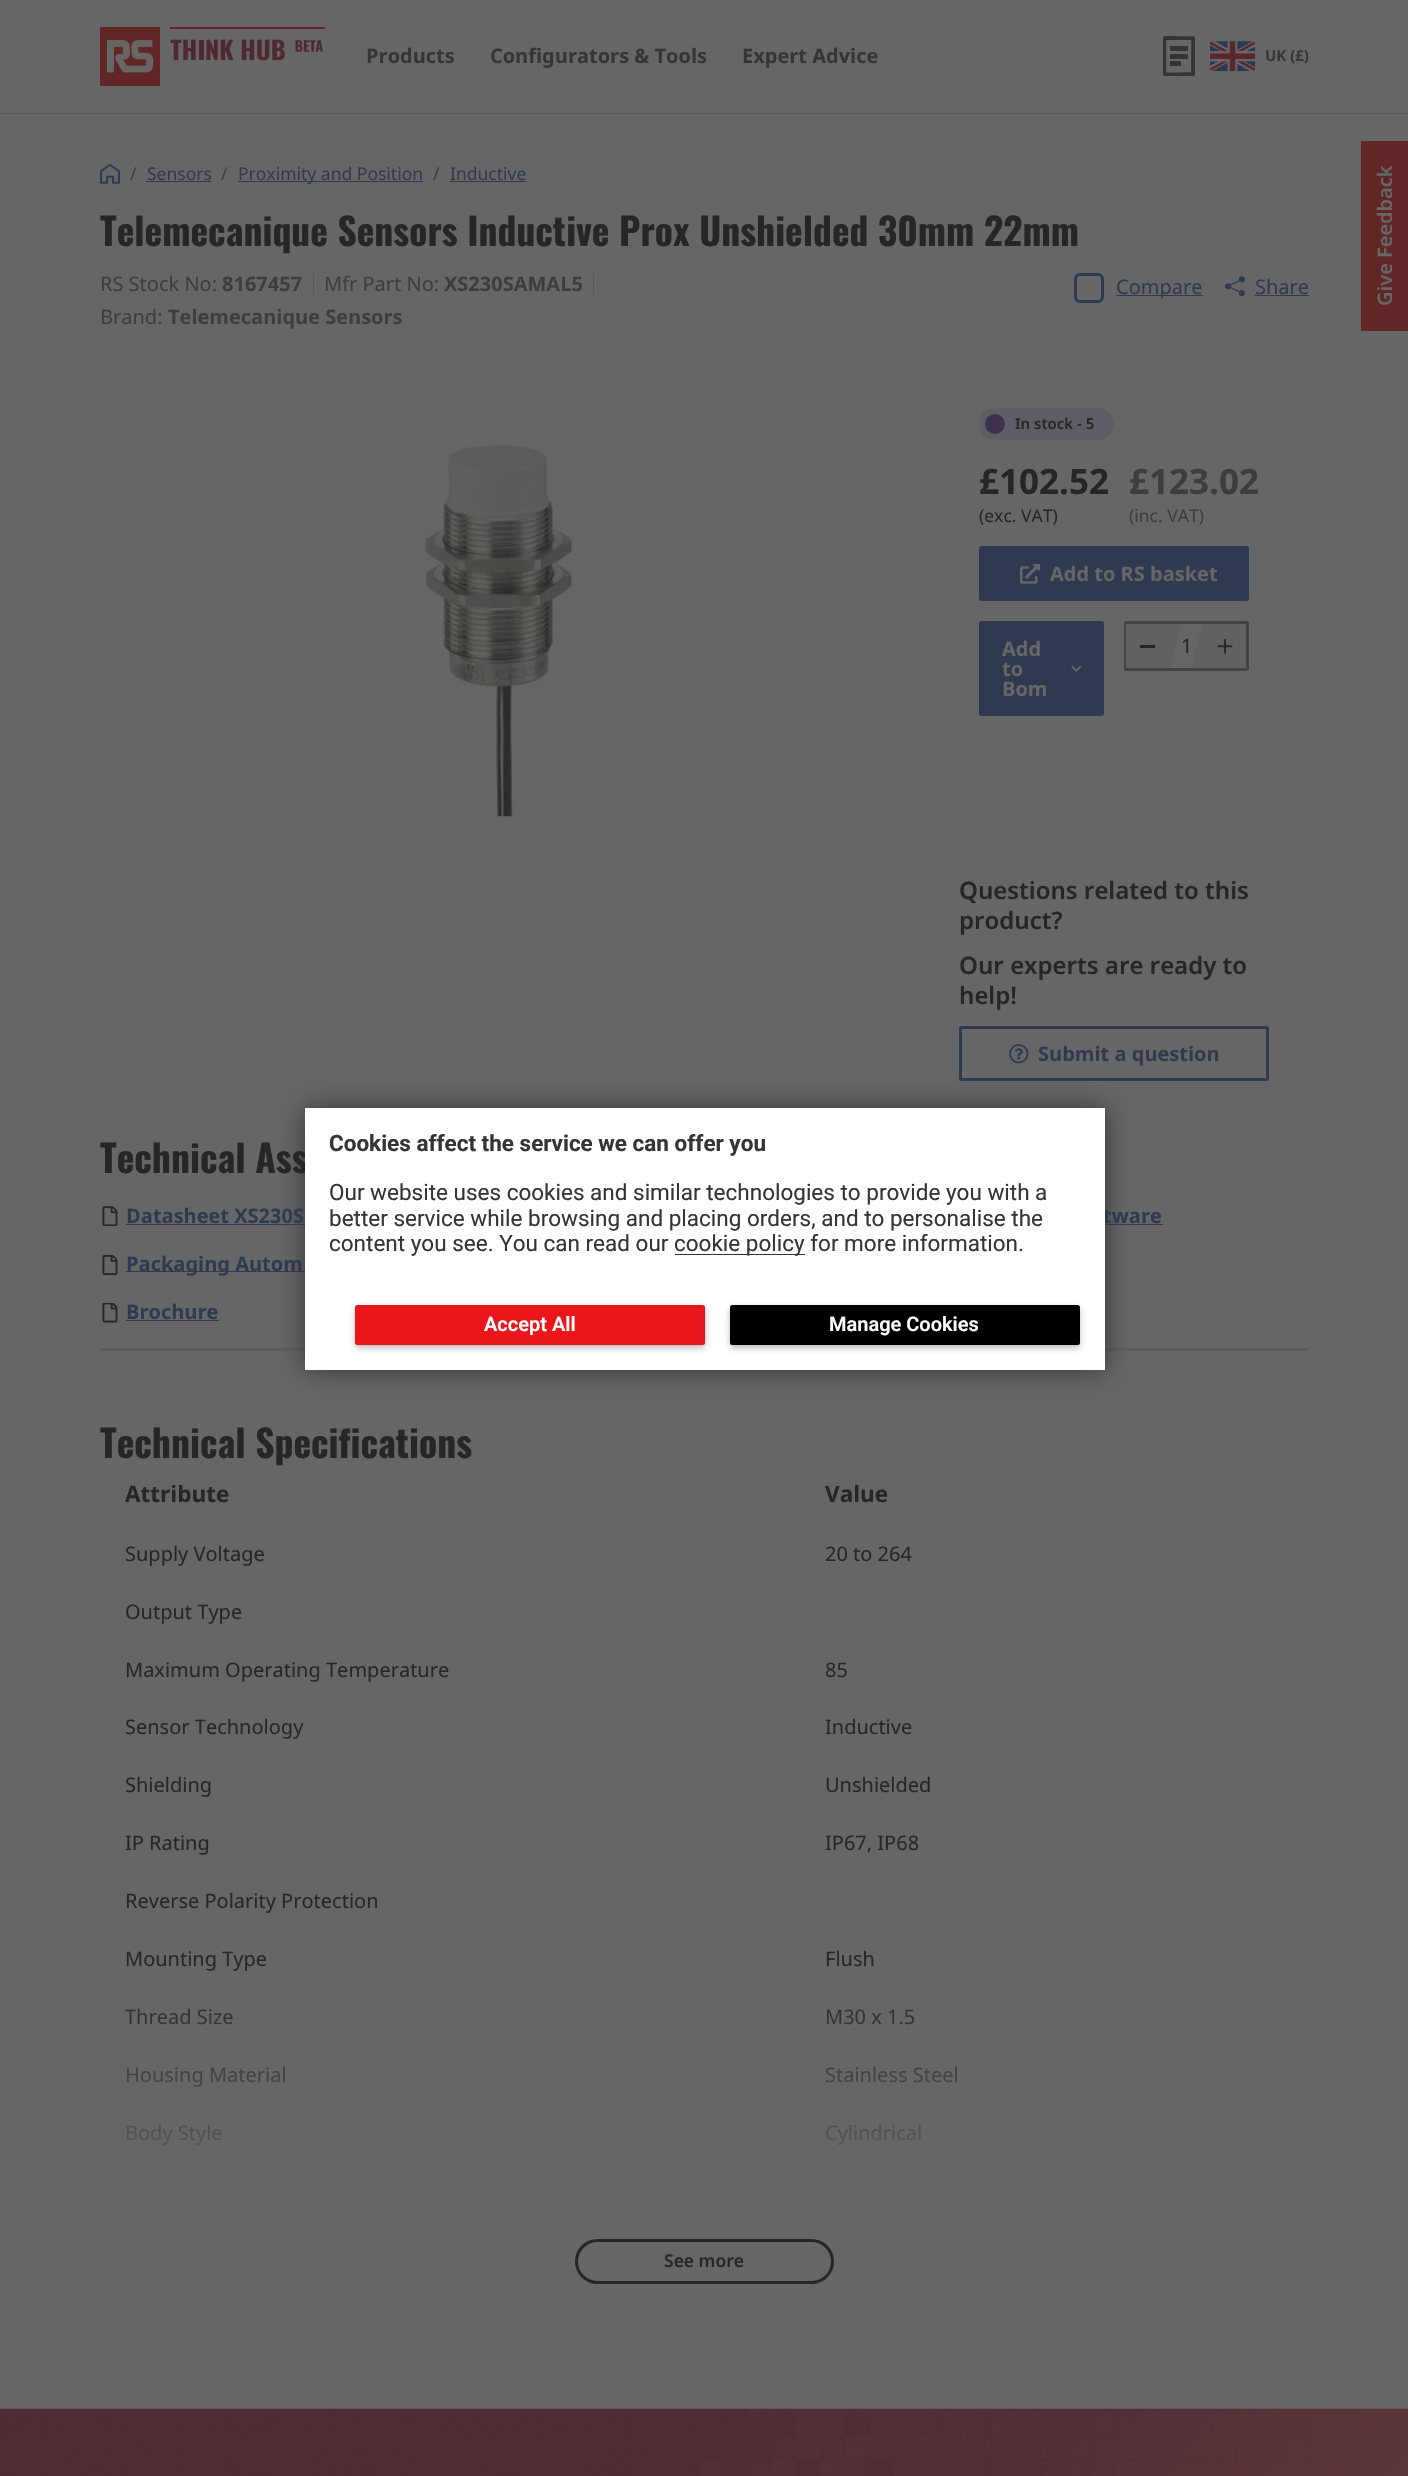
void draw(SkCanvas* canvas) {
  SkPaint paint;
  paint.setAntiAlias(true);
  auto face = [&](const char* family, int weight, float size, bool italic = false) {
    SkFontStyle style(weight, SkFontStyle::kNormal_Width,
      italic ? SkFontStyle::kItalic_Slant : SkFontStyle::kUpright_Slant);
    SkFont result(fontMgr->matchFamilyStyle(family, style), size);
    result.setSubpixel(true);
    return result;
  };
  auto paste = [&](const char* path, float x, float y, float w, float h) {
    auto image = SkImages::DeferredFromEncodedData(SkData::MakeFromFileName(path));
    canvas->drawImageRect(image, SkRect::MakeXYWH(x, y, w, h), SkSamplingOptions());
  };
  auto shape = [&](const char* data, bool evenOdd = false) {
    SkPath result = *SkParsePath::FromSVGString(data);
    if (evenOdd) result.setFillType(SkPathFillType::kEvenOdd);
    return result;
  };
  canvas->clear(0xff666666);
  paint.setColor(0xff585858);
  canvas->drawRect(SkRect::MakeXYWH(0, 113, 1408, 1), paint);
  paste("img/1.png", 100, 27, 225, 59);
  paste("img/2.png", 1163, 36, 32, 40);
  paste("img/3.png", 1210, 41, 45, 30);
  paste("img/4.png", 100, 164, 20, 20);
  {
    const struct { float x, y, w, h; SkColor color; } items[] = {
      {146, 181, 65, 1, 0xff2f3a50},
      {238, 181, 185, 1, 0xff2f3a50},
      {450, 181, 76, 1, 0xff2f3a50},
      {313, 273, 1, 22, 0xff585858},
      {593, 273, 1, 22, 0xff585858},
    };
    for (auto [x, y, w, h, color] : items) {
      paint.setColor(color);
      canvas->drawRect(SkRect::MakeXYWH(x, y, w, h), paint);
    }
  }
  paint.setStroke(true);
  paint.setStrokeWidth(3);
  paint.setColor(0xff2f3a50);
  canvas->drawRoundRect(SkRect::MakeXYWH(1075.5f, 274.5f, 27, 27), 4.5f, 4.5f, paint);
  paint.setStroke(false);
  canvas->drawRect(SkRect::MakeXYWH(1116, 295, 87, 1), paint);
  paste("img/5.png", 1225, 276, 20, 20);
  canvas->drawRect(SkRect::MakeXYWH(1255, 295, 54, 1), paint);
  paste("img/6.png", 422, 441, 153, 376);
  paint.setColor(0xff605c66);
  canvas->drawRoundRect(SkRect::MakeXYWH(979, 408, 135, 32), 16, 16, paint);
  paint.setColor(0xff3d2f50);
  canvas->drawCircle(995, 424, 8, paint);
  paint.setStroke(true);
  paint.setStrokeWidth(4);
  canvas->drawCircle(995, 424, 8, paint);
  paint.setStroke(false);
  paint.setColor(0xff2f3a50);
  canvas->drawRoundRect(SkRect::MakeXYWH(980.5f, 547.5f, 267, 52), 1, 1, paint);
  paint.setStroke(true);
  paint.setStrokeWidth(3);
  canvas->drawRoundRect(SkRect::MakeXYWH(980.5f, 547.5f, 267, 52), 1, 1, paint);
  paste("img/7.png", 1020, 564, 20, 20);
  paint.setStroke(false);
  canvas->drawRoundRect(SkRect::MakeXYWH(980.5f, 622.5f, 122, 92), 1, 1, paint);
  paint.setStroke(true);
  canvas->drawRoundRect(SkRect::MakeXYWH(980.5f, 622.5f, 122, 92), 1, 1, paint);
  paste("img/8.png", 1071, 665, 10, 7);
  paint.setColor(0xff424242);
  canvas->drawRoundRect(SkRect::MakeXYWH(1125.5f, 622.5f, 122, 47), 1, 1, paint);
  paint.setStroke(false);
  paint.setColor(0xff616161);
  canvas->drawPath(shape("M1181 625L1170 668H1126V624H1181Z"), paint);
  paint.setColor(0xff262626);
  canvas->drawRect(SkRect::MakeXYWH(1140, 645, 15, 3), paint);
  paint.setColor(0xff616161);
  canvas->drawPath(shape("M1246 668H1191L1202 624H1246Z"), paint);
  paste("img/9.png", 1217, 638, 16, 16);
  paint.setStroke(true);
  paint.setColor(0xff2f3a50);
  canvas->drawRoundRect(SkRect::MakeXYWH(960.5f, 1027.5f, 307, 52), 1, 1, paint);
  paste("img/10.png", 1009, 1044, 20, 20);
  paint.setStroke(false);
  paint.setColor(0xff5d5d5d);
  canvas->drawRect(SkRect::MakeXYWH(100, 1348, 1209, 3), paint);
  paste("img/11.png", 102, 1206, 16, 20);
  paint.setColor(0xff2f3a50);
  canvas->drawRect(SkRect::MakeXYWH(126, 1224, 179, 1), paint);
  canvas->drawRect(SkRect::MakeXYWH(1105, 1224, 58, 1), paint);
  paste("img/12.png", 102, 1255, 16, 20);
  canvas->drawRect(SkRect::MakeXYWH(126, 1271, 179, 1), paint);
  paste("img/13.png", 102, 1303, 16, 20);
  canvas->drawRect(SkRect::MakeXYWH(126, 1320, 93, 1), paint);
  paint.setStroke(true);
  paint.setColor(0xff262626);
  canvas->drawRoundRect(SkRect::MakeXYWH(576.5f, 2240.5f, 256, 42), 21, 21, paint);
  paint.setStroke(false);
  paint.setColor(0xff622626);
  canvas->drawRect(SkRect::MakeXYWH(1361, 141, 47, 190), paint);
  paste("img/14.png", 0, 2408, 1408, 68);
  paint.setColor(0xff333333);
  paint.setMaskFilter(SkMaskFilter::MakeBlur(kNormal_SkBlurStyle, 12.5f));
  canvas->drawRect(SkRect::MakeXYWH(305, 1108, 800, 262), paint);
  paint.setMaskFilter(nullptr);
  auto f0 = face("Noto Sans", 700, 20);
  paint.setColor(0xff353535);
  {
    const struct { const char* s; float x, y; } items[] = {
      {"Products", 366, 63},
      {"Configurators & Tools", 490, 63},
      {"Expert Advice", 742, 63},
    };
    for (auto [s, x, y] : items) {
      canvas->drawString(s, x, y, f0, paint);
    }
  }
  auto f1 = face("Noto Sans", 700, 15);
  canvas->drawString("UK (£)", 1265, 61, f1, paint);
  auto f2 = face("Noto Sans", 400, 17.5f);
  paint.setColor(0xff3d3d3d);
  canvas->drawString("/", 130, 180, f2, paint);
  paint.setColor(0xff2f3a50);
  canvas->drawString("Sensors", 147, 180, f2, paint);
  paint.setColor(0xff3d3d3d);
  canvas->drawString("/", 221, 180, f2, paint);
  paint.setColor(0xff2f3a50);
  canvas->drawString("Proximity and Position", 238, 180, f2, paint);
  paint.setColor(0xff3d3d3d);
  canvas->drawString("/", 433, 180, f2, paint);
  paint.setColor(0xff2f3a50);
  canvas->drawString("Inductive", 450, 180, f2, paint);
  auto f3 = face("Oswald", 700, 37.5f);
  paint.setColor(0xff262626);
  canvas->drawString("Telemecanique Sensors Inductive Prox Unshielded 30mm 22mm", 100, 246, f3, paint);
  auto f4 = face("Noto Sans", 400, 20);
  paint.setColor(0xff3d3d3d);
  canvas->drawString("RS Stock No:", 100, 291, f4, paint);
  canvas->drawString("8167457", 222, 291, f0, paint);
  canvas->drawString("Mfr Part No:", 324, 291, f4, paint);
  canvas->drawString("XS230SAMAL5", 444, 291, f0, paint);
  canvas->drawString("Brand:", 100, 324, f4, paint);
  canvas->drawString("Telemecanique Sensors", 168, 324, f0, paint);
  paint.setColor(0xff2f3a50);
  canvas->drawString("Compare", 1116, 294, f4, paint);
  canvas->drawString("Share", 1255, 294, f4, paint);
  auto f5 = face("Noto Sans", 600, 15);
  paint.setColor(0xff262626);
  canvas->drawString("In stock - 5", 1015, 429, f5, paint);
  auto f6 = face("Noto Sans", 700, 35);
  canvas->drawString("£102.52", 979, 494, f6, paint);
  canvas->drawString("(exc. VAT)", 979, 522, f2, paint);
  paint.setColor(0xff3d3d3d);
  canvas->drawString("£123.02", 1129, 494, f6, paint);
  canvas->drawString("(inc. VAT)", 1129, 522, f2, paint);
  paint.setColor(0xff666666);
  {
    const struct { const char* s; float x, y; } items[] = {
      {"Add to RS basket", 1050, 581},
      {"Add", 1002, 656},
      {"to", 1002, 676},
      {"Bom", 1002, 696},
    };
    for (auto [s, x, y] : items) {
      canvas->drawString(s, x, y, f0, paint);
    }
  }
  paint.setColor(0xff262626);
  canvas->drawString("1", 1181, 653, f4, paint);
  auto f7 = face("Noto Sans", 600, 24);
  {
    const struct { const char* s; float x, y; } items[] = {
      {"Questions related to this", 959, 899},
      {"product?", 959, 929},
      {"Our experts are ready to", 959, 974},
      {"help!", 959, 1004},
    };
    for (auto [s, x, y] : items) {
      canvas->drawString(s, x, y, f7, paint);
    }
  }
  paint.setColor(0xff2f3a50);
  canvas->drawString("Submit a question", 1038, 1061, f0, paint);
  paint.setColor(0xff262626);
  canvas->drawString("Technical Ass", 100, 1173, f3, paint);
  paint.setColor(0xff2f3a50);
  {
    const struct { const char* s; float x, y; } items[] = {
      {"Datasheet XS230S", 126, 1223},
      {"tware", 1103, 1223},
      {"Packaging Autom", 126, 1271},
      {"Brochure", 126, 1319},
    };
    for (auto [s, x, y] : items) {
      canvas->drawString(s, x, y, f0, paint);
    }
  }
  paint.setColor(0xff262626);
  canvas->drawString("Technical Specifications", 100, 1458, f3, paint);
  auto f8 = face("Noto Sans", 700, 22.5f);
  canvas->drawString("Attribute", 125, 1502, f8, paint);
  canvas->drawString("Value", 825, 1502, f8, paint);
  {
    const struct { const char* s; float x, y; } items[] = {
      {"Supply Voltage", 125, 1561},
      {"20 to 264", 825, 1561},
      {"Output Type", 125, 1619},
      {"Maximum Operating Temperature", 125, 1677},
      {"85", 825, 1677},
      {"Sensor Technology", 125, 1734},
      {"Inductive", 825, 1734},
      {"Shielding", 125, 1792},
      {"Unshielded", 825, 1792},
      {"IP Rating", 125, 1850},
      {"IP67, IP68", 825, 1850},
      {"Reverse Polarity Protection", 125, 1908},
      {"Mounting Type", 125, 1966},
      {"Flush", 825, 1966},
      {"Thread Size", 125, 2024},
      {"M30 x 1.5", 825, 2024},
      {"Housing Material", 125, 2082},
      {"Stainless Steel", 825, 2082},
      {"Body Style", 125, 2140},
      {"Cylindrical", 825, 2140},
    };
    for (auto [s, x, y] : items) {
      canvas->drawString(s, x, y, f4, paint);
    }
  }
  {
    const SkColor colors[] = {0x00666666, 0xff666666};
    const float stops[] = {0, 1};
    const SkPoint ends[] = {{704, 1964}, {704, 2214}};
    paint.setShader(SkGradientShader::MakeLinear(ends, colors, stops, 2, SkTileMode::kClamp));
    paint.setAlpha(255);
  }
  canvas->drawRect(SkRect::MakeXYWH(125, 2009, 832, 136), paint);
  auto f9 = face("Noto Sans", 600, 17.5f);
  paint.setShader(nullptr);
  paint.setColor(0xff262626);
  canvas->drawString("See more", 664, 2267, f9, paint);
  auto f10 = face("Noto Sans", 600, 20);
  paint.setColor(0xff666666);
  canvas->save();
  canvas->rotate(-90, 1392, 306);
  canvas->drawString("Give Feedback", 1392, 306, f10, paint);
  canvas->restore();
  paint.setColor(0xffffffff);
  canvas->drawRect(SkRect::MakeXYWH(305, 1108, 800, 262), paint);
  auto f11 = face("Roboto", 700, 22.5f);
  paint.setColor(0xff353535);
  canvas->drawString("Cookies affect the service we can offer you", 329, 1151, f11, paint);
  auto f12 = face("Roboto", 400, 22.5f);
  {
    const struct { const char* s; float x, y; } items[] = {
      {"Our website uses cookies and similar technologies to provide you with a", 329, 1200},
      {"better service while browsing and placing orders, and to personalise the", 329, 1226},
      {"content you see. You can read our", 329, 1251},
    };
    for (auto [s, x, y] : items) {
      canvas->drawString(s, x, y, f12, paint);
    }
  }
  paint.setColor(0xff333333);
  canvas->drawRect(SkRect::MakeXYWH(675, 1254, 130, 1), paint);
  paint.setColor(0xff353535);
  canvas->drawString("cookie policy for more information.", 674, 1251, f12, paint);
  paint.setColor(0x42000000);
  paint.setMaskFilter(SkMaskFilter::MakeBlur(kNormal_SkBlurStyle, 3));
  canvas->drawRoundRect(SkRect::MakeXYWH(355, 1308, 350, 40), 2.5f, 2.5f, paint);
  paint.setMaskFilter(nullptr);
  paint.setColor(0xffeb151c);
  canvas->drawRoundRect(SkRect::MakeXYWH(355, 1305, 350, 40), 2.5f, 2.5f, paint);
  auto f13 = face("Roboto", 600, 20);
  paint.setColor(0xffffffff);
  canvas->drawString("Accept All", 484, 1331, f13, paint);
  paint.setColor(0x42000000);
  paint.setMaskFilter(SkMaskFilter::MakeBlur(kNormal_SkBlurStyle, 3));
  canvas->drawRoundRect(SkRect::MakeXYWH(730, 1308, 350, 40), 2.5f, 2.5f, paint);
  paint.setMaskFilter(nullptr);
  paint.setColor(0xff000000);
  canvas->drawRoundRect(SkRect::MakeXYWH(730, 1305, 350, 40), 2.5f, 2.5f, paint);
  paint.setColor(0xffffffff);
  canvas->drawString("Manage Cookies", 829, 1331, f13, paint);
}
